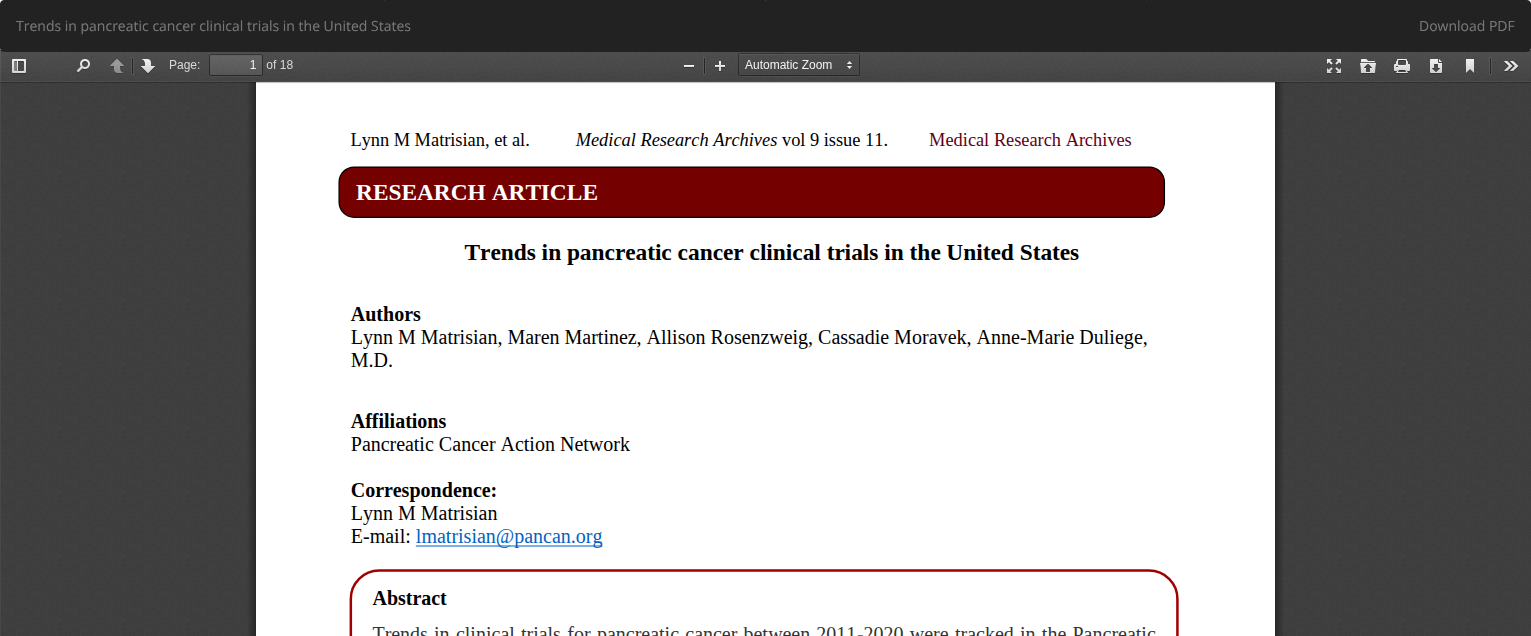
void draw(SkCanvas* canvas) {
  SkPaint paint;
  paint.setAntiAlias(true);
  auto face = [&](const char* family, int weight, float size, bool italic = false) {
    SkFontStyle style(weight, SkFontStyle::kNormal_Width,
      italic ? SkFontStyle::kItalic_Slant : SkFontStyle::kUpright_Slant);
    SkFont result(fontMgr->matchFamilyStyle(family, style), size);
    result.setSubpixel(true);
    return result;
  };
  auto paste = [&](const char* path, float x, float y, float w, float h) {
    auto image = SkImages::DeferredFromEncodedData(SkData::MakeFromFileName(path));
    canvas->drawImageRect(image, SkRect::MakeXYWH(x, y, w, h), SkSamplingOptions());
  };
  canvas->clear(0xffffffff);
  paste("img/1.png", 0, 50, 1531, 586);
  paint.setColor(0xff222222);
  canvas->drawRoundRect(SkRect::MakeXYWH(0.5f, 0.5f, 1530, 51), 3.5f, 3.5f, paint);
  paint.setStroke(true);
  paint.setStrokeWidth(1);
  canvas->drawRoundRect(SkRect::MakeXYWH(0.5f, 0.5f, 1530, 51), 3.5f, 3.5f, paint);
  auto f0 = face("Open Sans", 400, 14);
  paint.setStroke(false);
  paint.setColor(0xff777777);
  canvas->drawString("Trends in pancreatic cancer clinical trials in the United States", 16, 31, f0, paint);
  canvas->drawString("Download PDF", 1419, 31, f0, paint);
}
